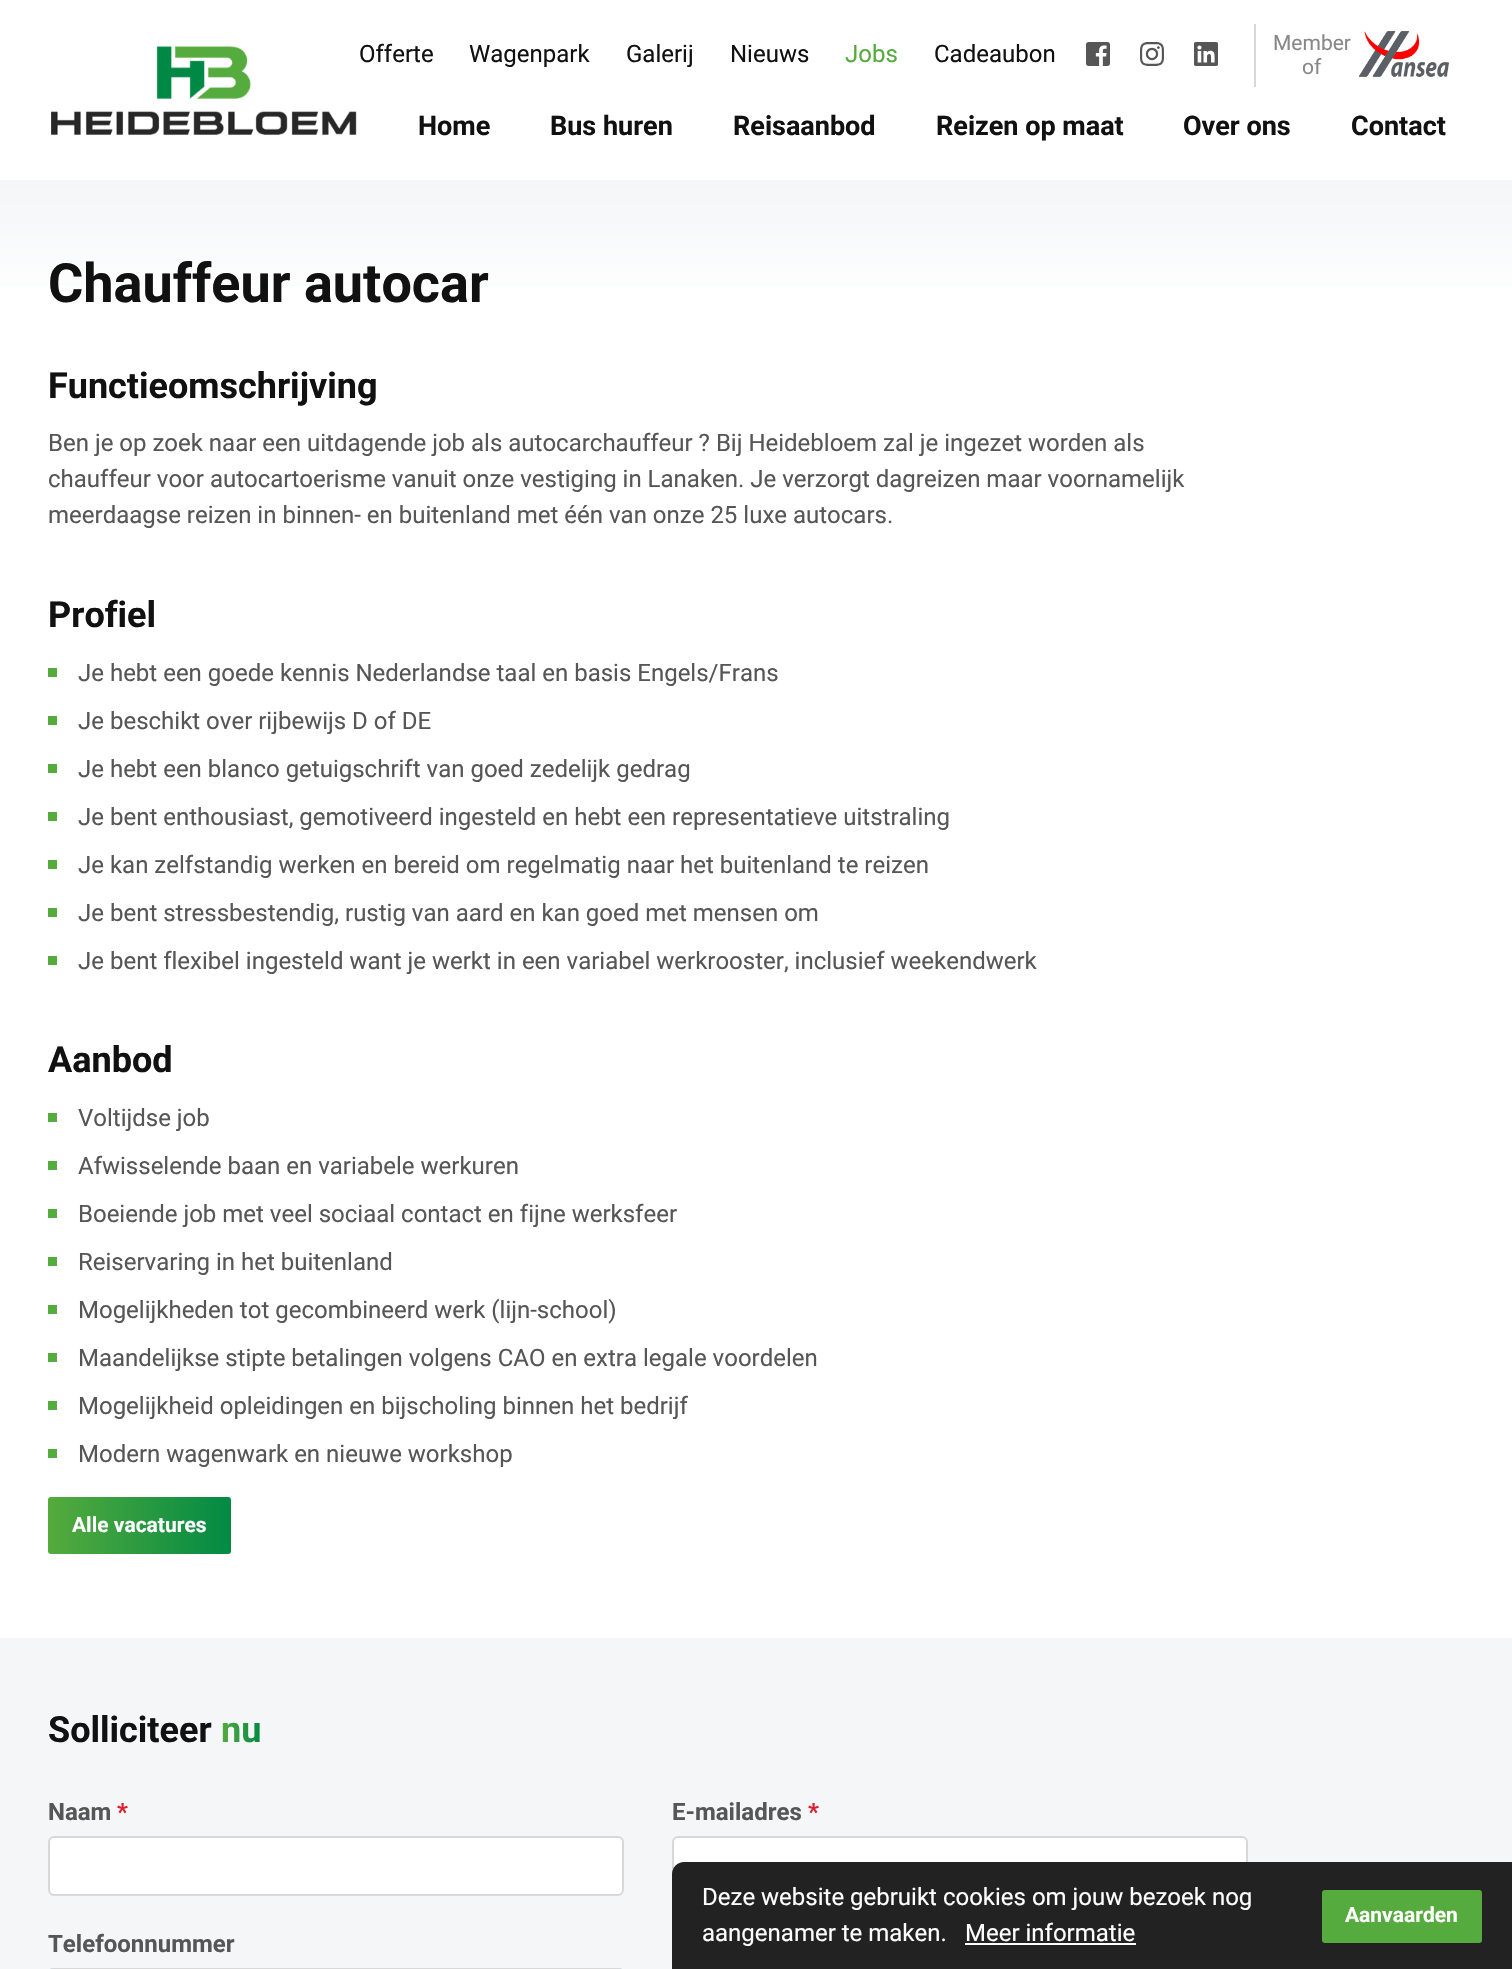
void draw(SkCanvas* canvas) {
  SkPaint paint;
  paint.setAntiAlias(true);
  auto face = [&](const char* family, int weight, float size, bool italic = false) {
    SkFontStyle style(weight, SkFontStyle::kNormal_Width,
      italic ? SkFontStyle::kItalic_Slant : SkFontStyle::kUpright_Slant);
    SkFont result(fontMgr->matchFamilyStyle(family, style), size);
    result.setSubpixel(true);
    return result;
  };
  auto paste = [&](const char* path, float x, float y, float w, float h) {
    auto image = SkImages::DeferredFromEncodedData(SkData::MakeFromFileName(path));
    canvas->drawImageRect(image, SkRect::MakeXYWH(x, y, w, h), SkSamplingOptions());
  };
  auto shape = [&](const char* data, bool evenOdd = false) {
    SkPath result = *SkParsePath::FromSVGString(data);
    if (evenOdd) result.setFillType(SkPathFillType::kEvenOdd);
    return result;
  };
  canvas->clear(0xffffffff);
  paste("img/1.png", 51, 46, 306, 89);
  paste("img/2.png", 1086, 42, 24, 24);
  paste("img/3.png", 1140, 42, 24, 24);
  paste("img/4.png", 1194, 42, 24, 24);
  paint.setColor(0xffd8d8d8);
  canvas->drawRect(SkRect::MakeXYWH(1254, 24, 2, 63), paint);
  paste("img/5.png", 1359, 31, 90, 46);
  {
    const SkColor colors[] = {0xfff4f6f7, 0xffffffff};
    const float stops[] = {0, 1};
    const SkPoint ends[] = {{756, 180}, {756, 317}};
    paint.setShader(SkGradientShader::MakeLinear(ends, colors, stops, 2, SkTileMode::kClamp));
    paint.setAlpha(255);
  }
  canvas->drawRect(SkRect::MakeXYWH(0, 180, 1512, 106), paint);
  paint.setShader(nullptr);
  {
    const struct { float x, y, w, h; SkColor color; } items[] = {
      {48, 668, 9, 9, 0xff55ab3d},
      {48, 716, 9, 9, 0xff55ab3d},
      {48, 764, 9, 9, 0xff55ab3d},
      {48, 812, 9, 9, 0xff55ab3d},
      {48, 860, 9, 9, 0xff55ab3d},
      {48, 908, 9, 9, 0xff55ab3d},
      {48, 956, 9, 9, 0xff55ab3d},
      {48, 1113, 9, 9, 0xff55ab3d},
      {48, 1161, 9, 9, 0xff55ab3d},
      {48, 1209, 9, 9, 0xff55ab3d},
      {48, 1257, 9, 9, 0xff55ab3d},
      {48, 1305, 9, 9, 0xff55ab3d},
      {48, 1353, 9, 9, 0xff55ab3d},
      {48, 1401, 9, 9, 0xff55ab3d},
      {48, 1449, 9, 9, 0xff55ab3d},
    };
    for (auto [x, y, w, h, color] : items) {
      paint.setColor(color);
      canvas->drawRect(SkRect::MakeXYWH(x, y, w, h), paint);
    }
  }
  {
    const SkColor colors[] = {0xff55ab3d, 0xff028a44};
    const float stops[] = {0, 1};
    const SkPoint ends[] = {{48, 1526}, {231, 1526}};
    paint.setShader(SkGradientShader::MakeLinear(ends, colors, stops, 2, SkTileMode::kClamp));
    paint.setAlpha(255);
  }
  canvas->drawRoundRect(SkRect::MakeXYWH(48, 1497, 183, 57), 3, 3, paint);
  paint.setShader(nullptr);
  paint.setColor(0xfff4f6f7);
  canvas->drawRect(SkRect::MakeXYWH(0, 1638, 1512, 331), paint);
  paint.setColor(0xffffffff);
  canvas->drawRoundRect(SkRect::MakeXYWH(49, 1837, 574, 58), 5, 5, paint);
  paint.setStroke(true);
  paint.setStrokeWidth(2);
  paint.setColor(0xffd8d8d8);
  canvas->drawRoundRect(SkRect::MakeXYWH(49, 1837, 574, 58), 5, 5, paint);
  paint.setStroke(false);
  paint.setColor(0xffffffff);
  canvas->drawRoundRect(SkRect::MakeXYWH(673, 1837, 574, 58), 5, 5, paint);
  paint.setStroke(true);
  paint.setColor(0xffd8d8d8);
  canvas->drawRoundRect(SkRect::MakeXYWH(673, 1837, 574, 58), 5, 5, paint);
  canvas->drawRoundRect(SkRect::MakeXYWH(49, 1969, 574, 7), 5, 5, paint);
  paint.setStroke(false);
  paint.setColor(0xff222222);
  canvas->drawPath(shape("M684 1862H1512V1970H672V1874C672 1867.5 677.5 1862 684 1862Z"), paint);
  paint.setColor(0xffffffff);
  canvas->drawRect(SkRect::MakeXYWH(965, 1943, 171, 2), paint);
  paint.setColor(0xff55ab3d);
  canvas->drawRoundRect(SkRect::MakeXYWH(1322, 1890, 160, 53), 3, 3, paint);
  auto f0 = face("Roboto", 400, 24);
  paint.setColor(0xff111111);
  {
    const struct { const char* s; float x, y; } items[] = {
      {"Offerte", 359, 62},
      {"Wagenpark", 469, 62},
      {"Galerij", 626, 62},
      {"Nieuws", 730, 62},
    };
    for (auto [s, x, y] : items) {
      canvas->drawString(s, x, y, f0, paint);
    }
  }
  paint.setColor(0xff55ab3d);
  canvas->drawString("Jobs", 845, 62, f0, paint);
  paint.setColor(0xff111111);
  canvas->drawString("Cadeaubon", 934, 62, f0, paint);
  auto f1 = face("Roboto", 400, 21);
  paint.setColor(0xff888888);
  canvas->drawString("Member", 1273, 50, f1, paint);
  canvas->drawString("of", 1302, 74, f1, paint);
  auto f2 = face("Roboto", 700, 27);
  paint.setColor(0xff111111);
  {
    const struct { const char* s; float x, y; } items[] = {
      {"Home", 418, 135},
      {"Bus huren", 550, 135},
      {"Reisaanbod", 733, 135},
      {"Reizen op maat", 936, 135},
      {"Over ons", 1183, 135},
      {"Contact", 1351, 135},
    };
    for (auto [s, x, y] : items) {
      canvas->drawString(s, x, y, f2, paint);
    }
  }
  auto f3 = face("Roboto", 700, 54);
  canvas->drawString("Chauffeur autocar", 48, 302, f3, paint);
  auto f4 = face("Roboto", 700, 36);
  canvas->drawString("Functieomschrijving", 48, 398, f4, paint);
  paint.setColor(0xff565656);
  {
    const struct { const char* s; float x, y; } items[] = {
      {"Ben je op zoek naar een uitdagende job als autocarchauffeur ? Bij Heidebloem zal je ingezet worden als", 48, 451},
      {"chauffeur voor autocartoerisme vanuit onze vestiging in Lanaken. Je verzorgt dagreizen maar voornamelijk", 48, 487},
      {"meerdaagse reizen in binnen- en buitenland met één van onze 25 luxe autocars.", 48, 523},
    };
    for (auto [s, x, y] : items) {
      canvas->drawString(s, x, y, f0, paint);
    }
  }
  paint.setColor(0xff111111);
  canvas->drawString("Profiel", 48, 627, f4, paint);
  paint.setColor(0xff565656);
  {
    const struct { const char* s; float x, y; } items[] = {
      {"Je hebt een goede kennis Nederlandse taal en basis Engels/Frans", 78, 681},
      {"Je beschikt over rijbewijs D of DE", 78, 729},
      {"Je hebt een blanco getuigschrift van goed zedelijk gedrag", 78, 777},
      {"Je bent enthousiast, gemotiveerd ingesteld en hebt een representatieve uitstraling", 78, 825},
      {"Je kan zelfstandig werken en bereid om regelmatig naar het buitenland te reizen", 78, 873},
      {"Je bent stressbestendig, rustig van aard en kan goed met mensen om", 78, 921},
      {"Je bent flexibel ingesteld want je werkt in een variabel werkrooster, inclusief weekendwerk", 78, 969},
    };
    for (auto [s, x, y] : items) {
      canvas->drawString(s, x, y, f0, paint);
    }
  }
  paint.setColor(0xff111111);
  canvas->drawString("Aanbod", 48, 1072, f4, paint);
  paint.setColor(0xff565656);
  {
    const struct { const char* s; float x, y; } items[] = {
      {"Voltijdse job", 78, 1126},
      {"Afwisselende baan en variabele werkuren", 78, 1174},
      {"Boeiende job met veel sociaal contact en fijne werksfeer", 78, 1222},
      {"Reiservaring in het buitenland", 78, 1270},
      {"Mogelijkheden tot gecombineerd werk (lijn-school)", 78, 1318},
      {"Maandelijkse stipte betalingen volgens CAO en extra legale voordelen", 78, 1366},
      {"Mogelijkheid opleidingen en bijscholing binnen het bedrijf", 78, 1414},
      {"Modern wagenwark en nieuwe workshop", 78, 1462},
    };
    for (auto [s, x, y] : items) {
      canvas->drawString(s, x, y, f0, paint);
    }
  }
  auto f5 = face("Roboto", 700, 21);
  paint.setColor(0xffffffff);
  canvas->drawString("Alle vacatures", 72, 1532, f5, paint);
  paint.setColor(0xff111111);
  canvas->drawString("Solliciteer", 48, 1742, f4, paint);
  {
    const SkColor colors[] = {0xff55ab3d, 0xff028a44};
    const float stops[] = {0, 1};
    const SkPoint ends[] = {{221, 1731}, {261, 1731}};
    paint.setShader(SkGradientShader::MakeLinear(ends, colors, stops, 2, SkTileMode::kClamp));
    paint.setAlpha(255);
  }
  canvas->drawString("nu", 221, 1742, f4, paint);
  auto f6 = face("Roboto", 700, 24);
  paint.setShader(nullptr);
  paint.setColor(0xff565656);
  canvas->drawString("Naam", 48, 1820, f6, paint);
  paint.setColor(0xffda2332);
  canvas->drawString("*", 117, 1820, f6, paint);
  paint.setColor(0xff565656);
  canvas->drawString("E-mailadres", 672, 1820, f6, paint);
  paint.setColor(0xffda2332);
  canvas->drawString("*", 808, 1820, f6, paint);
  paint.setColor(0xff565656);
  canvas->drawString("Telefoonnummer", 48, 1952, f6, paint);
  paint.setColor(0xffffffff);
  {
    const struct { const char* s; float x, y; } items[] = {
      {"Deze website gebruikt cookies om jouw bezoek nog", 702, 1905},
      {"aangenamer te maken.", 702, 1941},
      {"Meer informatie", 965, 1941},
    };
    for (auto [s, x, y] : items) {
      canvas->drawString(s, x, y, f0, paint);
    }
  }
  canvas->drawString("Aanvaarden", 1345, 1922, f5, paint);
}
